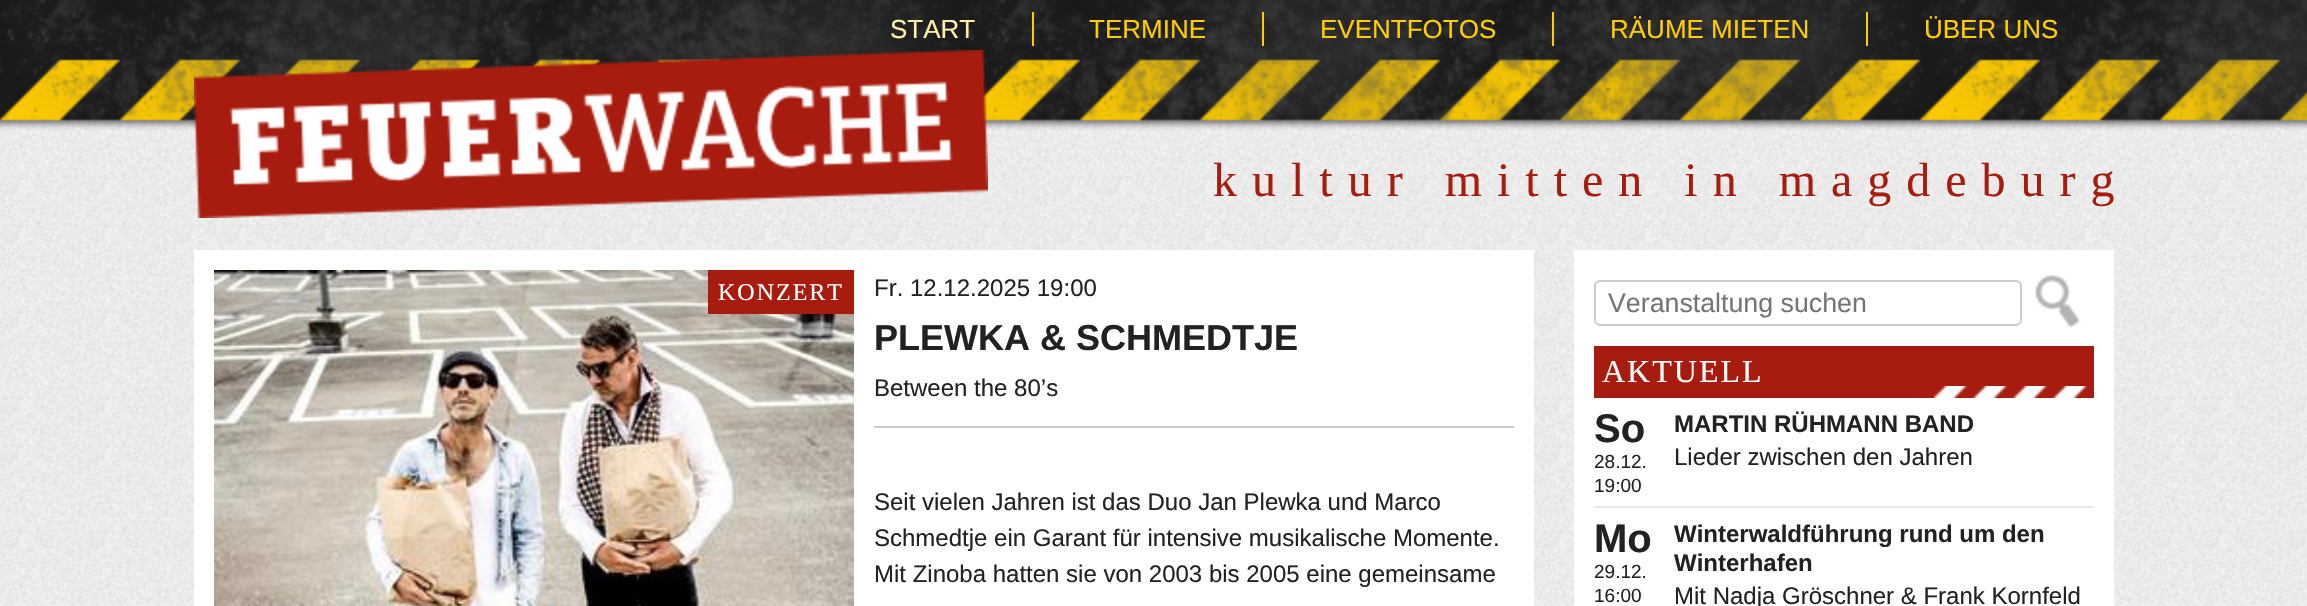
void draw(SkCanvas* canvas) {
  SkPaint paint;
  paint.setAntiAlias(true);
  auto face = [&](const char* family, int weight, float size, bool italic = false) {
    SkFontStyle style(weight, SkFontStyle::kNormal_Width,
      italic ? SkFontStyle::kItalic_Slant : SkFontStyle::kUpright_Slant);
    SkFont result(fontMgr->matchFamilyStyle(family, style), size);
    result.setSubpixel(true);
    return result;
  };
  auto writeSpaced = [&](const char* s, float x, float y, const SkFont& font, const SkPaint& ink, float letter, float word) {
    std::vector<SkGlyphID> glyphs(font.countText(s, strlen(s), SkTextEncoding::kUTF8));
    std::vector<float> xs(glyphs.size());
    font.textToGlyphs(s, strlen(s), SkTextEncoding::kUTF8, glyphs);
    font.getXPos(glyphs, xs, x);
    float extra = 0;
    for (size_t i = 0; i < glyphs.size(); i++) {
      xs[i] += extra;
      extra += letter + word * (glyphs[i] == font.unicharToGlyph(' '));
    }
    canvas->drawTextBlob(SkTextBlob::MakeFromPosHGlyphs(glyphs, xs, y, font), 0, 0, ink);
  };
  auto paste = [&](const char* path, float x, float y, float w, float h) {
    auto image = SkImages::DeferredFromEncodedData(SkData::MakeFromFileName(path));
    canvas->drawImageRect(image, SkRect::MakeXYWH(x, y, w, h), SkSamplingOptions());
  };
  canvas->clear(0xffffffff);
  paste("img/1.png", 0, 119, 2307, 487);
  paste("img/2.png", 0, 0, 2307, 130);
  {
    const struct { float x, y, w, h; SkColor color; } items[] = {
      {1032, 12, 2, 34, 0xffffcc00},
      {1262, 12, 2, 34, 0xffffcc00},
      {1552, 12, 2, 34, 0xffffcc00},
      {1866, 12, 2, 34, 0xffffcc00},
    };
    for (auto [x, y, w, h, color] : items) {
      paint.setColor(color);
      canvas->drawRect(SkRect::MakeXYWH(x, y, w, h), paint);
    }
  }
  paste("img/3.png", 194, 50, 794, 168);
  paint.setColor(0xffffffff);
  canvas->drawRect(SkRect::MakeXYWH(194, 250, 1340, 356), paint);
  paste("img/4.png", 214, 270, 640, 336);
  {
    const struct { float x, y, w, h; SkColor color; } items[] = {
      {708, 270, 146, 44, 0xffa71c0f},
      {874, 426, 640, 2, 0xffcccccc},
      {1574, 250, 540, 356, 0xffffffff},
    };
    for (auto [x, y, w, h, color] : items) {
      paint.setColor(color);
      canvas->drawRect(SkRect::MakeXYWH(x, y, w, h), paint);
    }
  }
  paint.setStroke(true);
  paint.setStrokeWidth(2);
  paint.setColor(0xffcccccc);
  canvas->drawRoundRect(SkRect::MakeXYWH(1595, 281, 426, 44), 5, 5, paint);
  paste("img/5.png", 2035, 274, 46, 54);
  paint.setStroke(false);
  paint.setColor(0xffa71c0f);
  canvas->drawRect(SkRect::MakeXYWH(1594, 346, 500, 52), paint);
  paste("img/6.png", 1934, 386, 153, 12);
  paint.setColor(0xffe8e8e8);
  canvas->drawRect(SkRect::MakeXYWH(1594, 506, 500, 2), paint);
  auto f0 = face("Liberation Sans", 400, 26);
  paint.setColor(0xffffeeaa);
  canvas->drawString("START", 890, 38, f0, paint);
  paint.setColor(0xffffcc00);
  {
    const struct { const char* s; float x, y; } items[] = {
      {"TERMINE", 1089, 38},
      {"EVENTFOTOS", 1320, 38},
      {"RÄUME MIETEN", 1610, 38},
      {"ÜBER UNS", 1924, 38},
    };
    for (auto [s, x, y] : items) {
      canvas->drawString(s, x, y, f0, paint);
    }
  }
  auto f1 = face("Liberation Serif", 400, 48);
  paint.setColor(0xffa71c0f);
  writeSpaced("kultur mitten in magdeburg", 1213, 196, f1, paint, 15, 0);
  auto f2 = face("Liberation Serif", 400, 24);
  paint.setColor(0xffffffff);
  writeSpaced("KONZERT", 718, 300, f2, paint, 2, 0);
  auto f3 = face("Liberation Sans", 400, 24);
  paint.setColor(0xff222222);
  canvas->drawString("Fr. 12.12.2025 19:00", 874, 296, f3, paint);
  auto f4 = face("Liberation Sans", 700, 36);
  canvas->drawString("PLEWKA & SCHMEDTJE", 874, 350, f4, paint);
  {
    const struct { const char* s; float x, y; } items[] = {
      {"Between the 80’s", 874, 396},
      {"Seit vielen Jahren ist das Duo Jan Plewka und Marco", 874, 510},
      {"Schmedtje ein Garant für intensive musikalische Momente.", 874, 546},
      {"Mit Zinoba hatten sie von 2003 bis 2005 eine gemeinsame", 874, 582},
    };
    for (auto [s, x, y] : items) {
      canvas->drawString(s, x, y, f3, paint);
    }
  }
  auto f5 = face("Liberation Sans", 400, 26.75f);
  paint.setColor(0xff757575);
  canvas->drawString("Veranstaltung suchen", 1608, 312, f5, paint);
  auto f6 = face("Liberation Serif", 400, 32);
  paint.setColor(0xffffffff);
  writeSpaced("AKTUELL", 1602, 382, f6, paint, 2, 0);
  auto f7 = face("Liberation Sans", 700, 40);
  paint.setColor(0xff222222);
  canvas->drawString("So", 1594, 442, f7, paint);
  auto f8 = face("Liberation Sans", 400, 19);
  canvas->drawString("28.12.", 1594, 468, f8, paint);
  canvas->drawString("19:00", 1594, 492, f8, paint);
  auto f9 = face("Liberation Sans", 700, 24);
  canvas->drawString("MARTIN RÜHMANN BAND", 1674, 432, f9, paint);
  canvas->drawString("Lieder zwischen den Jahren", 1674, 465, f3, paint);
  canvas->drawString("Mo", 1594, 552, f7, paint);
  canvas->drawString("29.12.", 1594, 578, f8, paint);
  canvas->drawString("16:00", 1594, 602, f8, paint);
  canvas->drawString("Winterwaldführung rund um den", 1674, 542, f9, paint);
  canvas->drawString("Winterhafen", 1674, 571, f9, paint);
  canvas->drawString("Mit Nadja Gröschner & Frank Kornfeld", 1674, 604, f3, paint);
}
